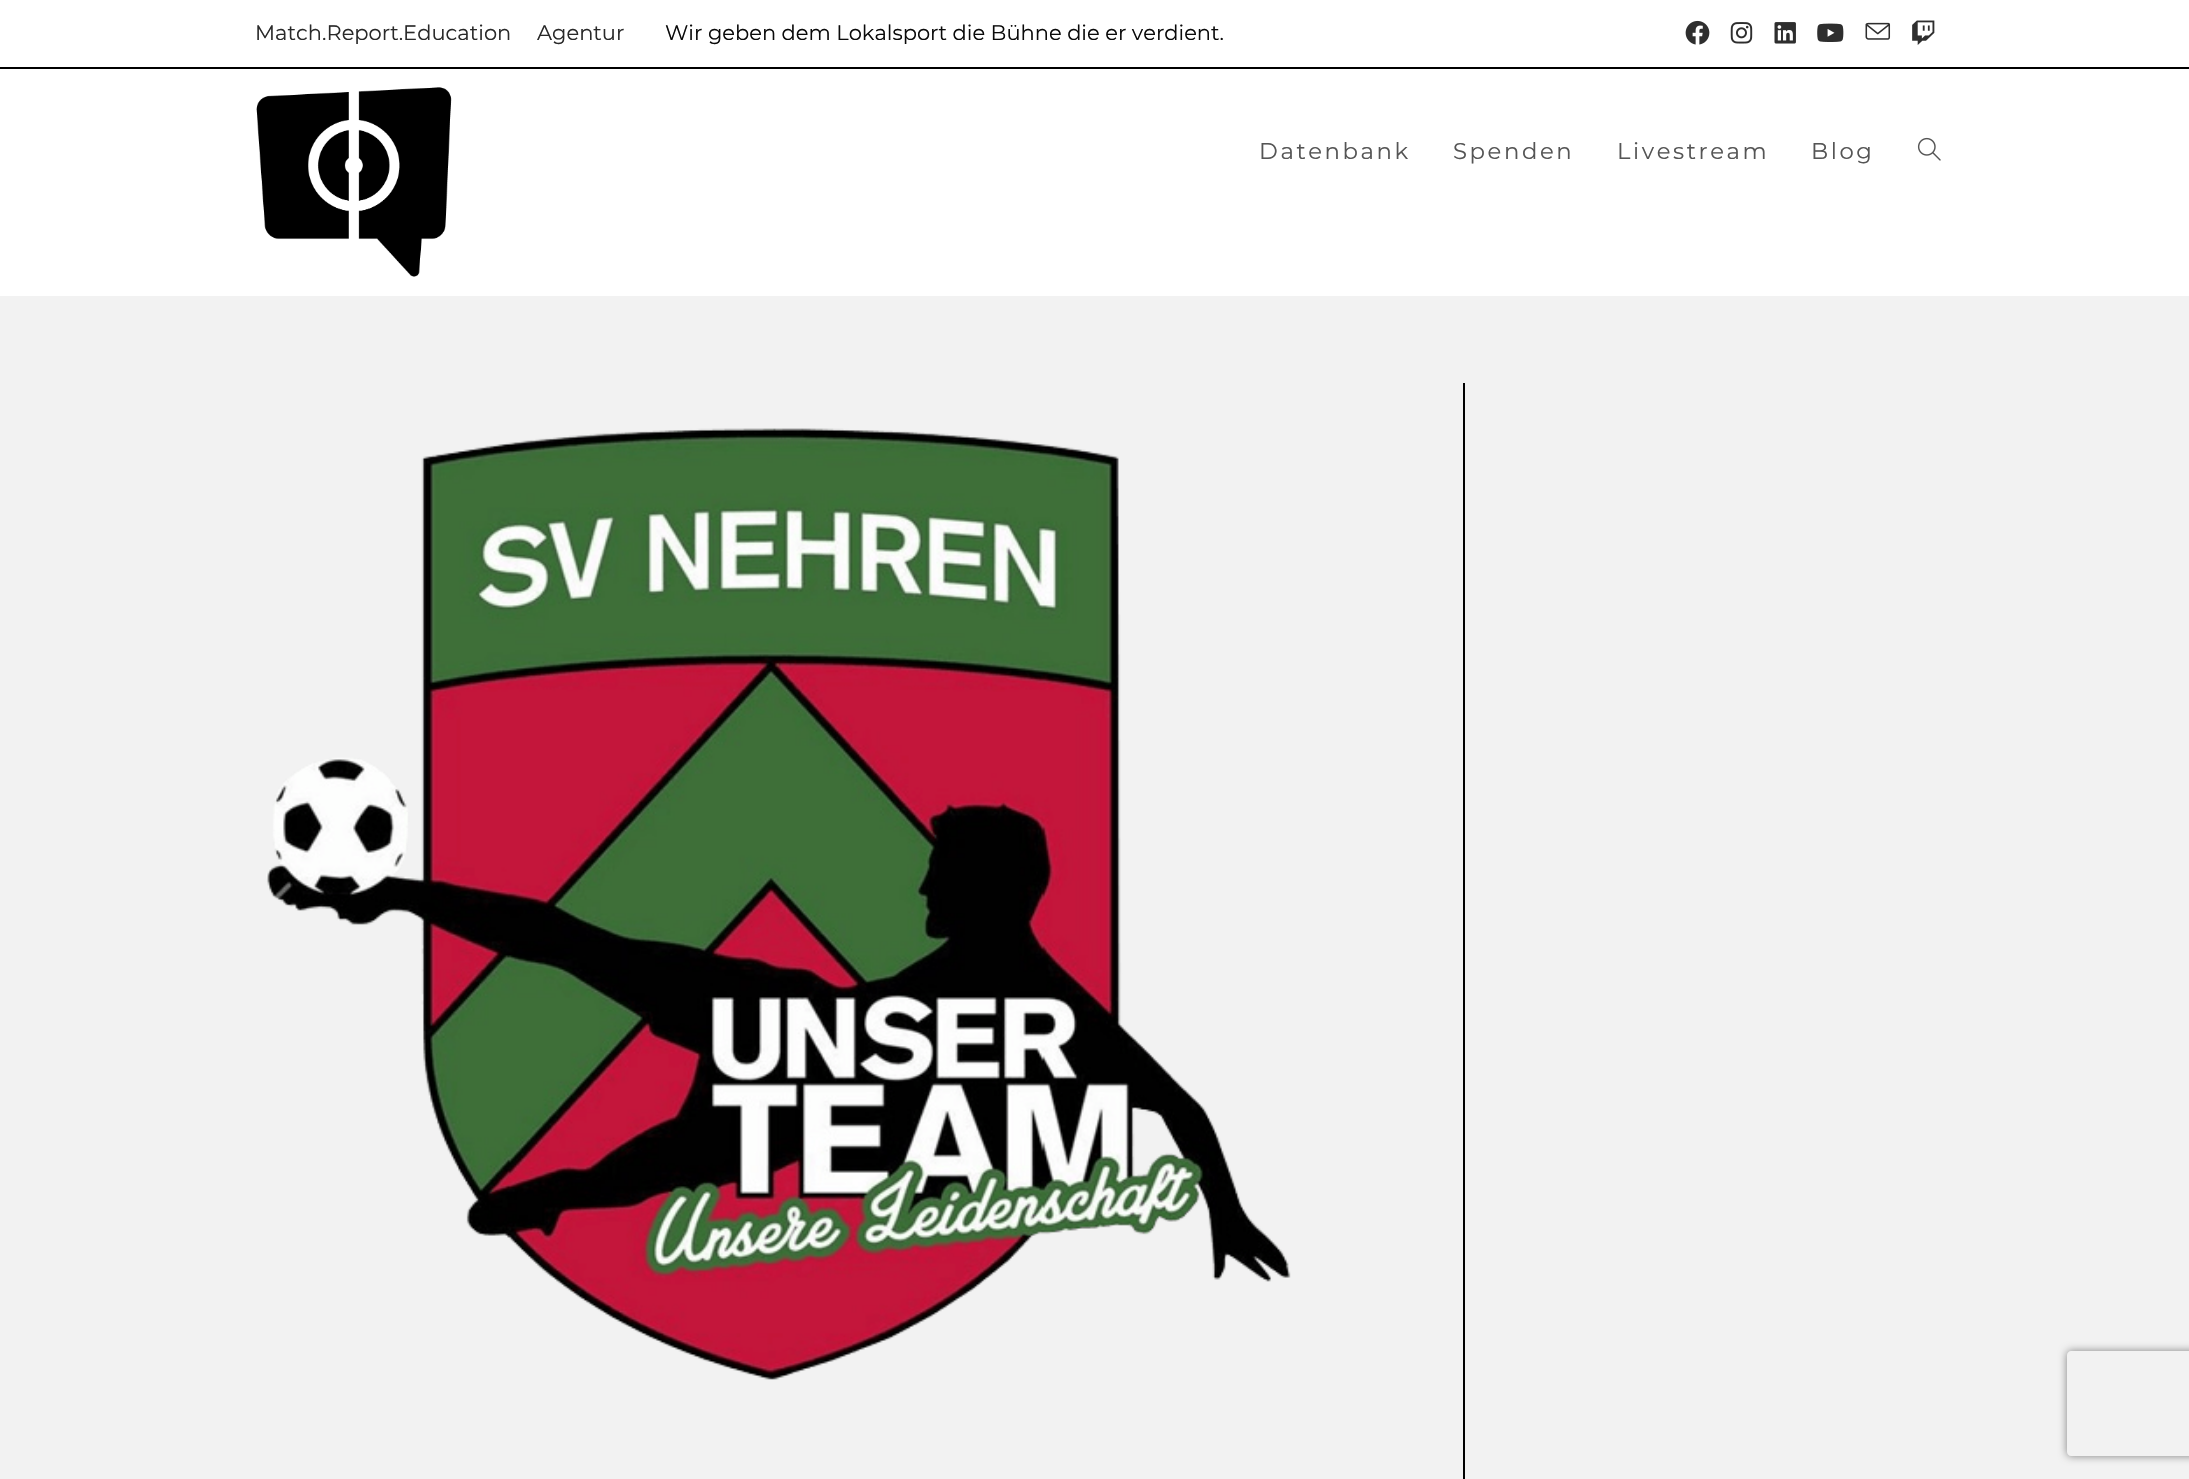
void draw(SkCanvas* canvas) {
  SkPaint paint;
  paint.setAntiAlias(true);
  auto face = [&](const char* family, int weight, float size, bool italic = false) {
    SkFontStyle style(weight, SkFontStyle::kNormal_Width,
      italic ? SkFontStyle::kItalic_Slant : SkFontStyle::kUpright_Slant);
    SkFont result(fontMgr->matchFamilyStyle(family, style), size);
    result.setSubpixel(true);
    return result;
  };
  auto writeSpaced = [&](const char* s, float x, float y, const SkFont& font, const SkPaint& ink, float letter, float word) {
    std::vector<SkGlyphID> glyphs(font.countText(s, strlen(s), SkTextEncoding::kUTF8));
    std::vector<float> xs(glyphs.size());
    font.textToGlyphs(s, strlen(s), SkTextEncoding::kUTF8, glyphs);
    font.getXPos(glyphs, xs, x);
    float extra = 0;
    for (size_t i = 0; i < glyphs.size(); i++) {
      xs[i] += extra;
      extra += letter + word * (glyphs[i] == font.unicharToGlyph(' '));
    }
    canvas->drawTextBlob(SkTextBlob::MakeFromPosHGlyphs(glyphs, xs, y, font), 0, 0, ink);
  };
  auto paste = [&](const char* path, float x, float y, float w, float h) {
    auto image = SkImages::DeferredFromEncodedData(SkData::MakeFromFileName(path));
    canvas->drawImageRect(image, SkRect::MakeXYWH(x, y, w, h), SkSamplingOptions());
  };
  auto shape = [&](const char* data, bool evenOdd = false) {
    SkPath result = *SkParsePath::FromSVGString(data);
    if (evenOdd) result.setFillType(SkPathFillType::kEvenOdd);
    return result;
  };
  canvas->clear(0xfff2f2f2);
  paint.setColor(0xffffffff);
  canvas->drawRect(SkRect::MakeXYWH(0, 0, 2189, 67), paint);
  paint.setColor(0xff000000);
  canvas->drawRect(SkRect::MakeXYWH(0, 67, 2189, 2), paint);
  paste("img/1.png", 1685, 20, 25, 25);
  paste("img/2.png", 1730, 22, 23, 22);
  paste("img/3.png", 1774, 22, 22, 22);
  paste("img/4.png", 1817, 23, 27, 19);
  paste("img/5.png", 1865, 22, 26, 18);
  paste("img/6.png", 1912, 20, 23, 25);
  paint.setColor(0xffffffff);
  canvas->drawRect(SkRect::MakeXYWH(0, 69, 2189, 227), paint);
  paste("img/7.png", 256, 87, 196, 190);
  paste("img/8.png", 1917, 137, 24, 24);
  paint.setColor(0xff000000);
  canvas->drawRect(SkRect::MakeXYWH(1463, 383, 2, 1096), paint);
  paste("img/9.png", 266, 428, 1025, 952);
  canvas->save();
  canvas->clipPath(shape("M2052 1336H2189V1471H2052ZM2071 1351H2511C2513 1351 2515 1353 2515 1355V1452C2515 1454 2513 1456 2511 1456H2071C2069 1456 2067 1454 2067 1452V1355C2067 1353 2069 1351 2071 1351Z", true), true);
  paint.setColor(0xff808080);
  paint.setMaskFilter(SkMaskFilter::MakeBlur(kNormal_SkBlurStyle, 4.5f));
  canvas->drawRoundRect(SkRect::MakeXYWH(2067, 1351, 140, 105), 4, 4, paint);
  paint.setMaskFilter(nullptr);
  canvas->restore();
  auto f0 = face("Montserrat", 400, 21);
  paint.setColor(0xff292929);
  canvas->drawString("Match.Report.Education", 255, 40, f0, paint);
  canvas->drawString("Agentur", 537, 40, f0, paint);
  paint.setColor(0xff0a0a0a);
  canvas->drawString("Wir geben dem Lokalsport die Bühne die er verdient.", 665, 40, f0, paint);
  auto f1 = face("Montserrat", 400, 22.75f);
  paint.setColor(0xff555555);
  {
    const struct { const char* s; float x, y; } items[] = {
      {"Datenbank", 1259, 159},
      {"Spenden", 1453, 159},
      {"Livestream", 1617, 159},
      {"Blog", 1811, 159},
    };
    for (auto [s, x, y] : items) {
      writeSpaced(s, x, y, f1, paint, 2.6f, 0);
    }
  }
}
